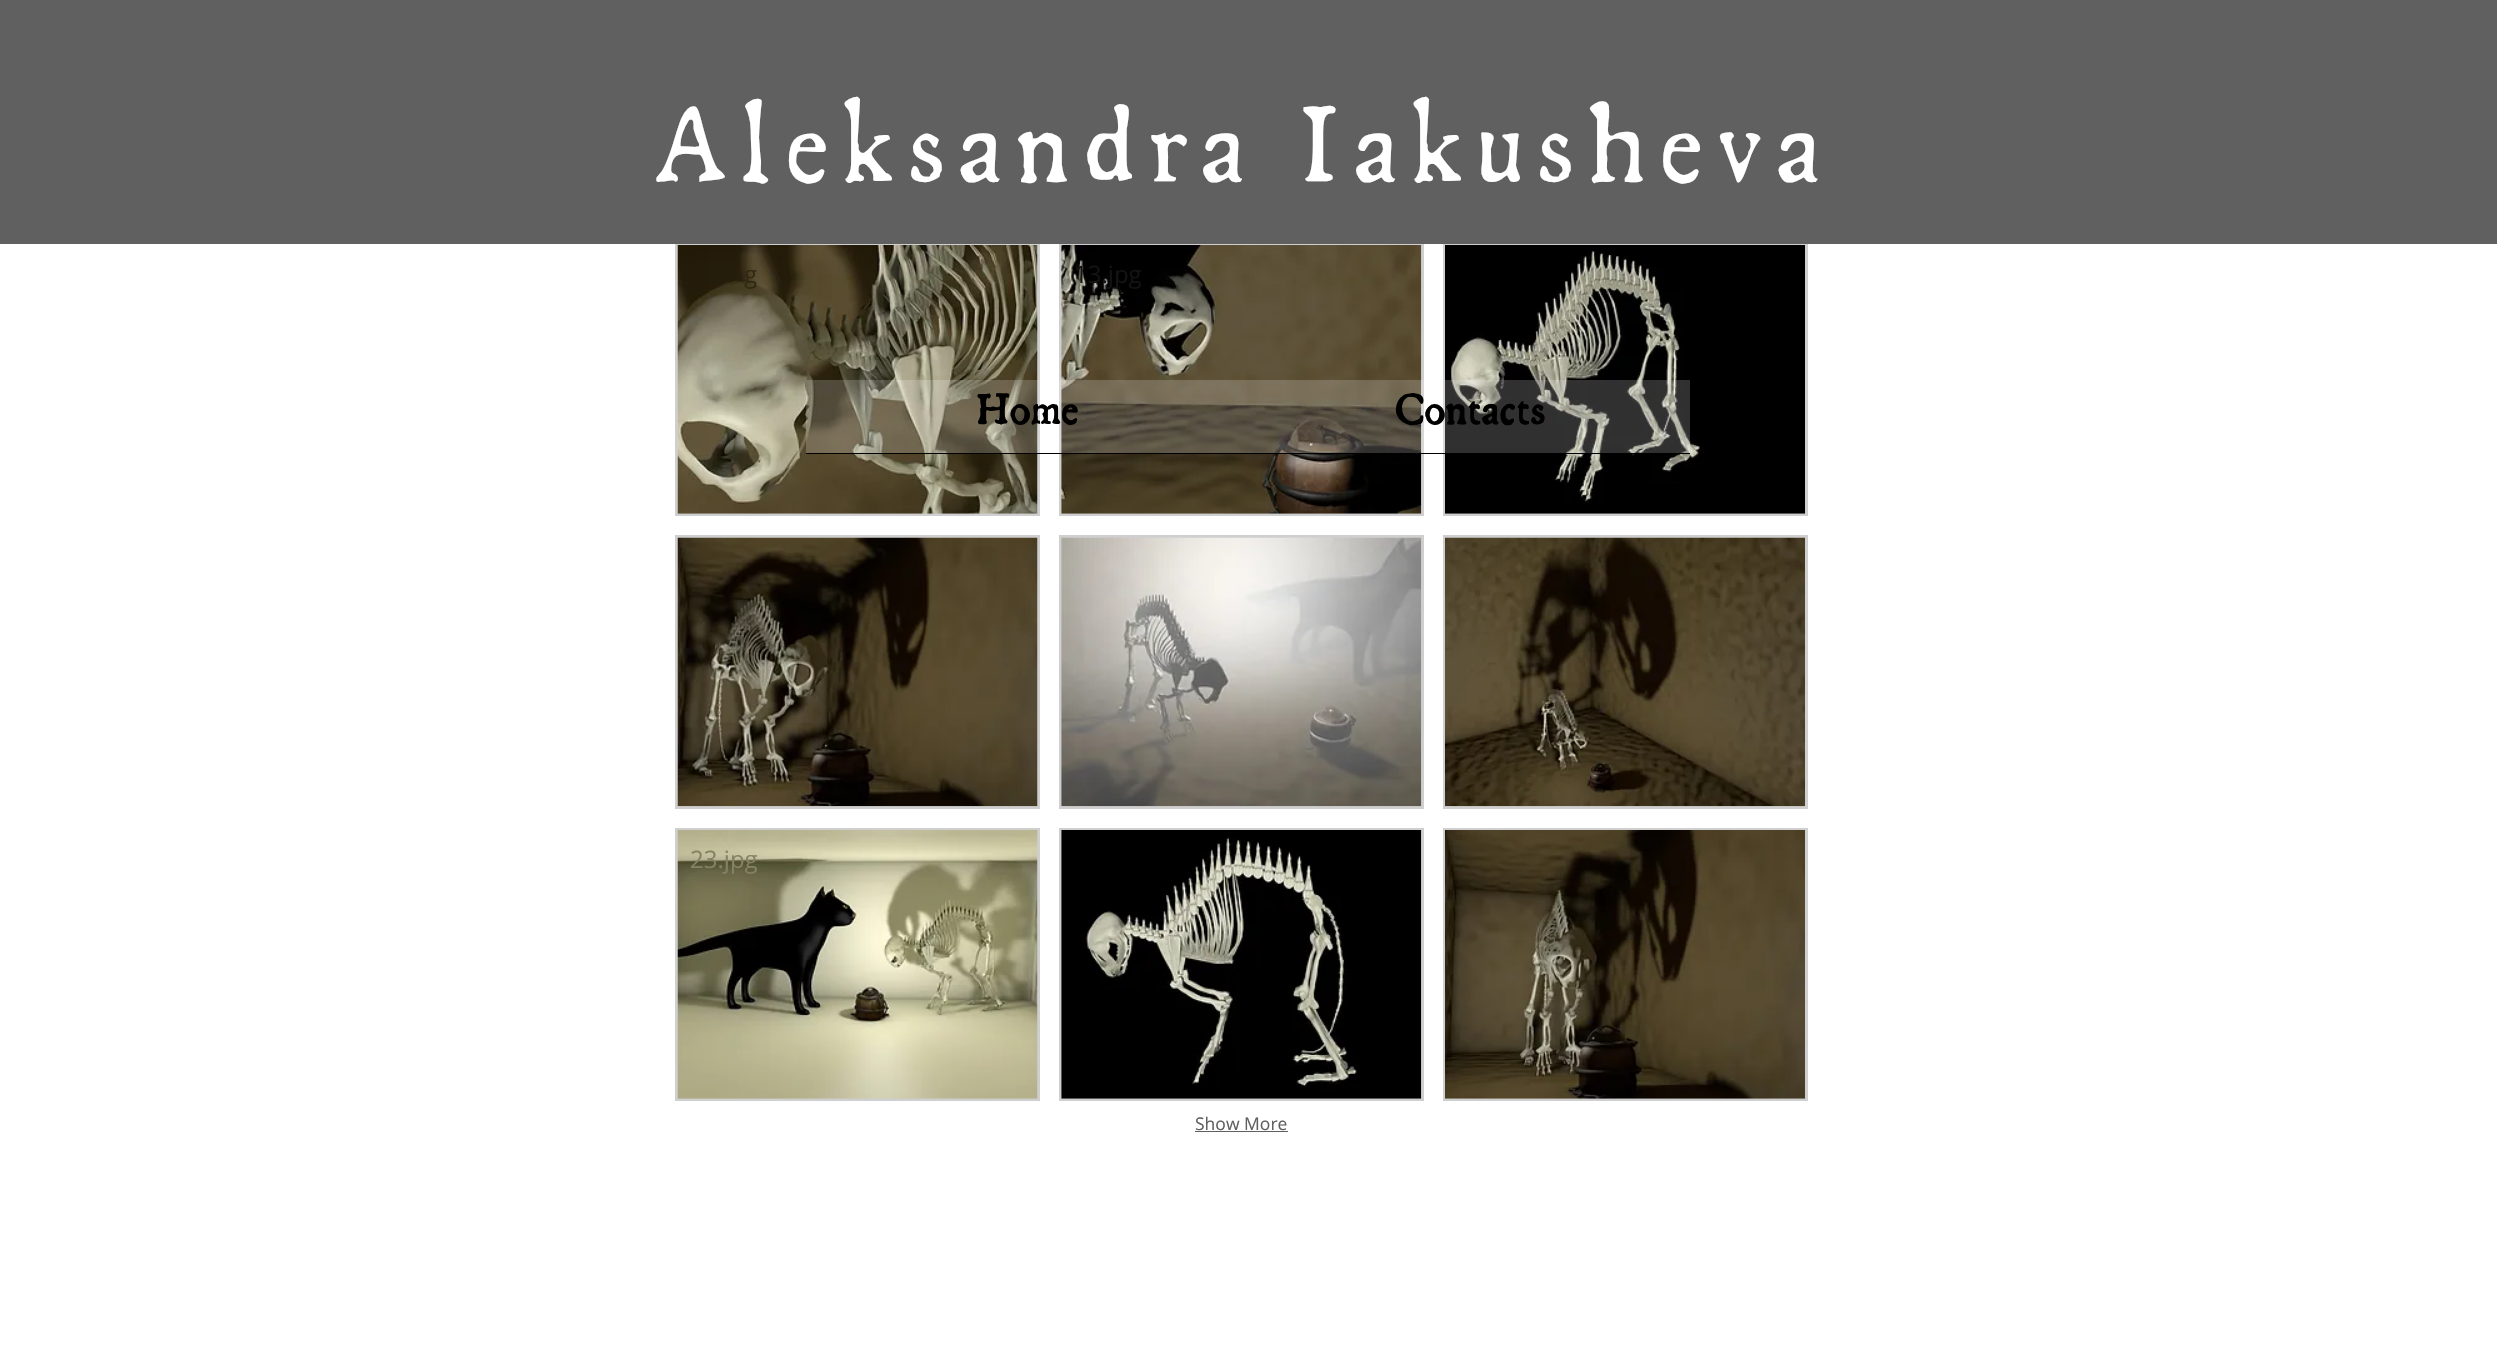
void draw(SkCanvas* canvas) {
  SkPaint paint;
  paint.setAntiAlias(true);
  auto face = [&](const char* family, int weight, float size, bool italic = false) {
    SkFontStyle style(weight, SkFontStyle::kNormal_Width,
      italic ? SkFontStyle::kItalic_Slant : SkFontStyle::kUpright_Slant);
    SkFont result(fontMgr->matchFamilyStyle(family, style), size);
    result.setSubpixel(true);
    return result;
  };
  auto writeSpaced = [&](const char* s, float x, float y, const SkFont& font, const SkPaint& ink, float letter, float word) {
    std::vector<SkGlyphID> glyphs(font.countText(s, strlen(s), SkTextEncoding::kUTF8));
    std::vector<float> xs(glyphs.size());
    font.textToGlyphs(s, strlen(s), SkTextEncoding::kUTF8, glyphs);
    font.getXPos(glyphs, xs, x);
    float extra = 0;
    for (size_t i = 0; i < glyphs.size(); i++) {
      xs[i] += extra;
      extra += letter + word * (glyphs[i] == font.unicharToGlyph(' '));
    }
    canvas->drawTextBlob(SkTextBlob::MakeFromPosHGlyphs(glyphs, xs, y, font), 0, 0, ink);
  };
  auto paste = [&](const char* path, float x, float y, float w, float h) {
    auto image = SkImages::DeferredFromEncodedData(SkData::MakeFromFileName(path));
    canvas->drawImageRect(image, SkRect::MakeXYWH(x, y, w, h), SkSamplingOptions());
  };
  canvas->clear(0xffffffff);
  paint.setColor(0xff606060);
  canvas->drawRect(SkRect::MakeXYWH(0, 0, 2497, 244), paint);
  paint.setColor(0xffcfcfcf);
  canvas->drawRect(SkRect::MakeXYWH(675, 244, 365, 272), paint);
  paste("img/1.png", 677, 245, 361, 269);
  canvas->drawRect(SkRect::MakeXYWH(1059, 244, 365, 272), paint);
  paste("img/2.png", 1061, 245, 361, 269);
  canvas->drawRect(SkRect::MakeXYWH(1443, 244, 365, 272), paint);
  paste("img/3.png", 1445, 245, 360, 269);
  {
    const struct { float x, y, w, h; SkColor color; } items[] = {
      {806, 380, 884, 73, 0x30ffffff},
      {806, 453, 884, 1, 0xff000000},
      {675, 535, 365, 274, 0xffcfcfcf},
    };
    for (auto [x, y, w, h, color] : items) {
      paint.setColor(color);
      canvas->drawRect(SkRect::MakeXYWH(x, y, w, h), paint);
    }
  }
  paste("img/4.png", 677, 537, 361, 270);
  canvas->drawRect(SkRect::MakeXYWH(1059, 535, 365, 274), paint);
  paste("img/5.png", 1061, 537, 361, 270);
  canvas->drawRect(SkRect::MakeXYWH(1443, 535, 365, 274), paint);
  paste("img/6.png", 1445, 537, 360, 270);
  canvas->drawRect(SkRect::MakeXYWH(675, 828, 365, 273), paint);
  paste("img/7.png", 677, 830, 361, 269);
  canvas->drawRect(SkRect::MakeXYWH(1059, 828, 365, 273), paint);
  paste("img/8.png", 1061, 830, 361, 269);
  canvas->drawRect(SkRect::MakeXYWH(1443, 828, 365, 273), paint);
  paste("img/9.png", 1445, 830, 360, 269);
  paint.setColor(0xff606060);
  canvas->drawRect(SkRect::MakeXYWH(1195, 1131, 93, 1), paint);
  auto f0 = face("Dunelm", 400, 115);
  paint.setColor(0xffffffff);
  writeSpaced("Aleksandra Iakusheva", 654, 181, f0, paint, 11.5f, 0);
  auto f1 = face("Dunelm", 700, 45);
  paint.setColor(0xff000000);
  canvas->drawString("Home", 976, 424, f1, paint);
  canvas->drawString("Contacts", 1394, 424, f1, paint);
  auto f2 = face("Open Sans", 400, 24);
  paint.setColor(0xff312813);
  canvas->drawString("g", 744, 283, f2, paint);
  paint.setColor(0xff131312);
  canvas->drawString("13.jpg", 1074, 283, f2, paint);
  paint.setColor(0xff848262);
  canvas->drawString("23.jpg", 690, 868, f2, paint);
  auto f3 = face("Open Sans", 400, 17.5f);
  paint.setColor(0xff606060);
  canvas->drawString("Show More", 1195, 1130, f3, paint);
}
